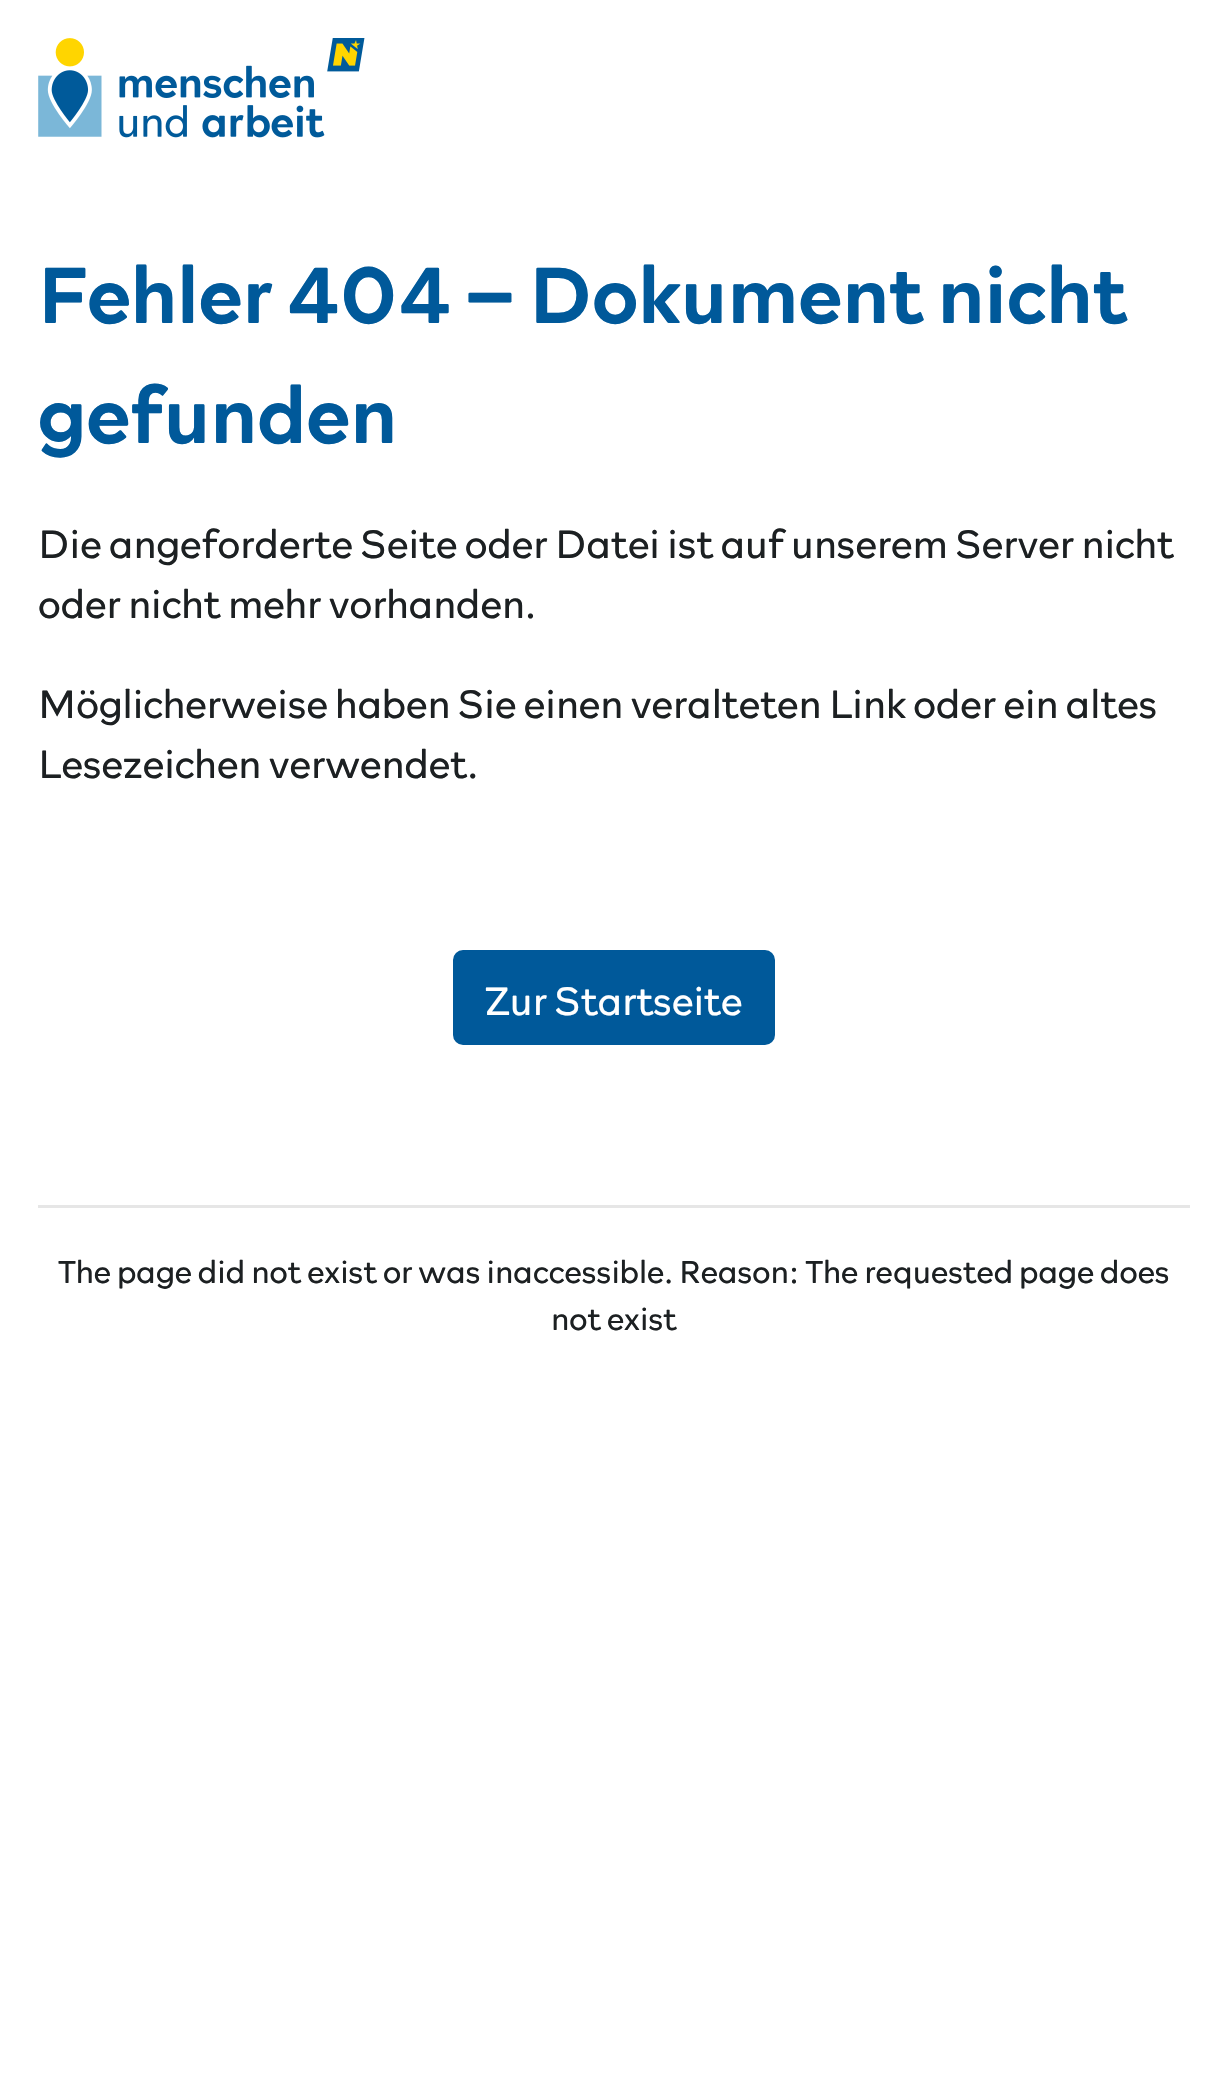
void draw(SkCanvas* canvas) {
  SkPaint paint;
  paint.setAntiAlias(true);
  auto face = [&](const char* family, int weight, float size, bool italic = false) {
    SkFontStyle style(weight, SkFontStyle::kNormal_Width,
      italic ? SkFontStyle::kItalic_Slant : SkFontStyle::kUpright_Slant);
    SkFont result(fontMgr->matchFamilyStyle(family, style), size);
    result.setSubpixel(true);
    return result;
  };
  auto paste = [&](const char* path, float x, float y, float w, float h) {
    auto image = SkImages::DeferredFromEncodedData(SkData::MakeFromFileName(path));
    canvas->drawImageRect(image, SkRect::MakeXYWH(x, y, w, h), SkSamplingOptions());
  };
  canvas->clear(0xffffffff);
  paste("img/1.png", 38, 38, 327, 100);
  paint.setColor(0xff00599a);
  canvas->drawRoundRect(SkRect::MakeXYWH(454.5f, 951.5f, 319, 92), 8.5f, 8.5f, paint);
  paint.setStroke(true);
  paint.setStrokeWidth(3);
  canvas->drawRoundRect(SkRect::MakeXYWH(454.5f, 951.5f, 319, 92), 8.5f, 8.5f, paint);
  paint.setStroke(false);
  paint.setColor(0xffe6e6e6);
  canvas->drawRect(SkRect::MakeXYWH(38, 1205, 1152, 3), paint);
  auto f0 = face("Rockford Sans", 500, 80);
  paint.setColor(0xff00599a);
  canvas->drawString("Fehler 404 – Dokument nicht", 38, 323, f0, paint);
  canvas->drawString("gefunden", 38, 443, f0, paint);
  auto f1 = face("Rockford Sans", 300, 40);
  paint.setColor(0xff1c2022);
  {
    const struct { const char* s; float x, y; } items[] = {
      {"Die angeforderte Seite oder Datei ist auf unserem Server nicht", 38, 558},
      {"oder nicht mehr vorhanden.", 38, 618},
      {"Möglicherweise haben Sie einen veralteten Link oder ein altes", 38, 718},
      {"Lesezeichen verwendet.", 38, 778},
    };
    for (auto [s, x, y] : items) {
      canvas->drawString(s, x, y, f1, paint);
    }
  }
  paint.setColor(0xffffffff);
  canvas->drawString("Zur Startseite", 485, 1015, f1, paint);
  auto f2 = face("Rockford Sans", 300, 32);
  paint.setColor(0xff1c2022);
  canvas->drawString("The page did not exist or was inaccessible. Reason: The requested page does", 58, 1283, f2, paint);
  canvas->drawString("not exist", 551, 1330, f2, paint);
}
